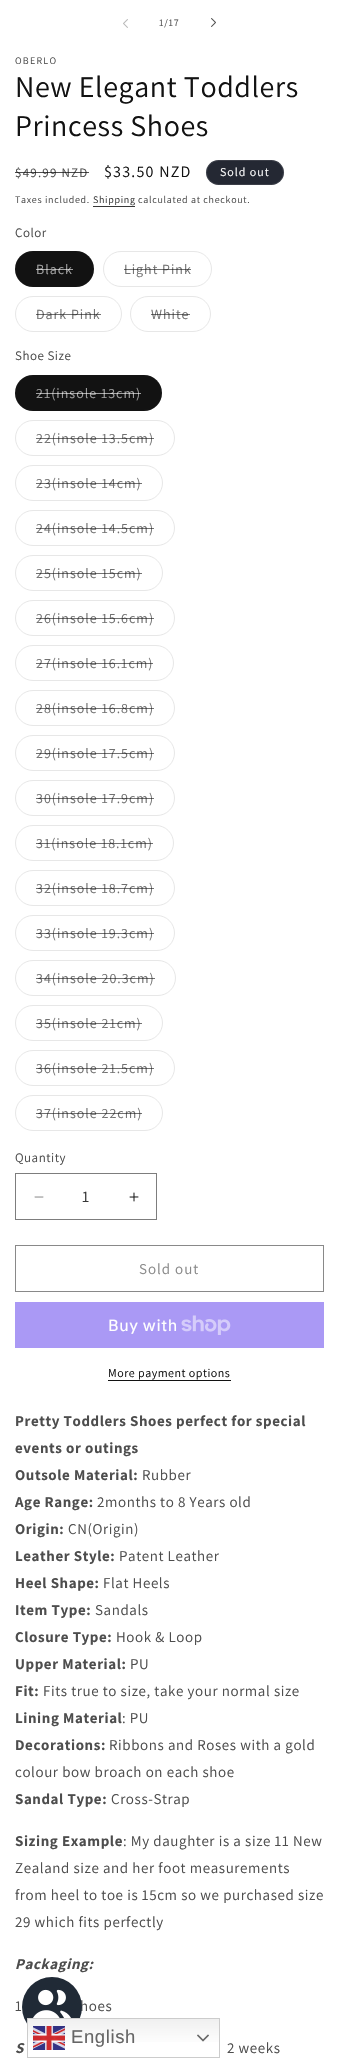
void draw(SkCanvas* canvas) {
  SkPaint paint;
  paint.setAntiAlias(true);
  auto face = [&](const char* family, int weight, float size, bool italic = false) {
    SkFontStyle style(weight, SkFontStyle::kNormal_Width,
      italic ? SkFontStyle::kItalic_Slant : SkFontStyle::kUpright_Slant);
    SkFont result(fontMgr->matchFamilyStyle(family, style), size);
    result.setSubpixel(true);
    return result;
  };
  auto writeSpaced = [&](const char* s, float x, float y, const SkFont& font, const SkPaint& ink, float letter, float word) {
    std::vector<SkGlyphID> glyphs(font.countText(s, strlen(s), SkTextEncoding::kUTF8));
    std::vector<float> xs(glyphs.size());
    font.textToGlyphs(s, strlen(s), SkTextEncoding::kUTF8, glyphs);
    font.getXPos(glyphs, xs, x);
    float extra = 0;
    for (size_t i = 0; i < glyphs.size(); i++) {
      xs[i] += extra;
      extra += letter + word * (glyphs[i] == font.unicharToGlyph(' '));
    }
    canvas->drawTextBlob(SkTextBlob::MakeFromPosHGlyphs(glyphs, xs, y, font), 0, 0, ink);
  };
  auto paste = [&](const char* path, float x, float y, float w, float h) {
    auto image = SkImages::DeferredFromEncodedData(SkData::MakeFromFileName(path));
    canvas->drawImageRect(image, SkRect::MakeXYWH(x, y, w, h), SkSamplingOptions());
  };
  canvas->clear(0xffffffff);
  paste("img/1.png", 123, 19, 5, 9);
  paste("img/2.png", 211, 18, 5, 9);
  paint.setColor(0xff242833);
  canvas->drawRoundRect(SkRect::MakeXYWH(206, 160, 78, 25), 12.5f, 12.5f, paint);
  paint.setStroke(true);
  paint.setStrokeWidth(1);
  paint.setColor(0x1affffff);
  canvas->drawRoundRect(SkRect::MakeXYWH(206.5f, 160.5f, 77, 24), 12, 12, paint);
  paint.setStroke(false);
  paint.setColor(0xff363636);
  canvas->drawRect(SkRect::MakeXYWH(93, 206, 42, 1), paint);
  paint.setColor(0xff121212);
  canvas->drawRoundRect(SkRect::MakeXYWH(15, 251, 79, 36), 18, 18, paint);
  paint.setStroke(true);
  paint.setColor(0x1a121212);
  canvas->drawRoundRect(SkRect::MakeXYWH(15.5f, 251.5f, 78, 35), 17.5f, 17.5f, paint);
  paint.setColor(0xffe7e7e7);
  canvas->drawRoundRect(SkRect::MakeXYWH(103.5f, 251.5f, 108, 35), 17.5f, 17.5f, paint);
  canvas->drawRoundRect(SkRect::MakeXYWH(15.5f, 296.5f, 106, 35), 17.5f, 17.5f, paint);
  canvas->drawRoundRect(SkRect::MakeXYWH(130.5f, 296.5f, 80, 35), 17.5f, 17.5f, paint);
  paint.setStroke(false);
  paint.setColor(0xff121212);
  canvas->drawRoundRect(SkRect::MakeXYWH(15, 375, 147, 36), 18, 18, paint);
  paint.setStroke(true);
  paint.setColor(0x1a121212);
  canvas->drawRoundRect(SkRect::MakeXYWH(15.5f, 375.5f, 146, 35), 17.5f, 17.5f, paint);
  paint.setColor(0xffe7e7e7);
  canvas->drawRoundRect(SkRect::MakeXYWH(15.5f, 420.5f, 159, 35), 17.5f, 17.5f, paint);
  canvas->drawRoundRect(SkRect::MakeXYWH(15.5f, 465.5f, 147, 35), 17.5f, 17.5f, paint);
  canvas->drawRoundRect(SkRect::MakeXYWH(15.5f, 510.5f, 159, 35), 17.5f, 17.5f, paint);
  canvas->drawRoundRect(SkRect::MakeXYWH(15.5f, 555.5f, 147, 35), 17.5f, 17.5f, paint);
  canvas->drawRoundRect(SkRect::MakeXYWH(15.5f, 600.5f, 159, 35), 17.5f, 17.5f, paint);
  canvas->drawRoundRect(SkRect::MakeXYWH(15.5f, 645.5f, 158, 35), 17.5f, 17.5f, paint);
  canvas->drawRoundRect(SkRect::MakeXYWH(15.5f, 690.5f, 159, 35), 17.5f, 17.5f, paint);
  canvas->drawRoundRect(SkRect::MakeXYWH(15.5f, 735.5f, 159, 35), 17.5f, 17.5f, paint);
  canvas->drawRoundRect(SkRect::MakeXYWH(15.5f, 780.5f, 159, 35), 17.5f, 17.5f, paint);
  canvas->drawRoundRect(SkRect::MakeXYWH(15.5f, 825.5f, 158, 35), 17.5f, 17.5f, paint);
  canvas->drawRoundRect(SkRect::MakeXYWH(15.5f, 870.5f, 159, 35), 17.5f, 17.5f, paint);
  canvas->drawRoundRect(SkRect::MakeXYWH(15.5f, 915.5f, 159, 35), 17.5f, 17.5f, paint);
  canvas->drawRoundRect(SkRect::MakeXYWH(15.5f, 960.5f, 160, 35), 17.5f, 17.5f, paint);
  canvas->drawRoundRect(SkRect::MakeXYWH(15.5f, 1005.5f, 147, 35), 17.5f, 17.5f, paint);
  canvas->drawRoundRect(SkRect::MakeXYWH(15.5f, 1050.5f, 159, 35), 17.5f, 17.5f, paint);
  canvas->drawRoundRect(SkRect::MakeXYWH(15.5f, 1095.5f, 147, 35), 17.5f, 17.5f, paint);
  paste("img/3.png", 34, 1196, 10, 2);
  paste("img/4.png", 129, 1192, 10, 10);
  paint.setColor(0xff7d7d7d);
  canvas->drawRect(SkRect::MakeXYWH(15.5f, 1173.5f, 141, 46), paint);
  paint.setColor(0xff898989);
  canvas->drawRect(SkRect::MakeXYWH(15.5f, 1245.5f, 308, 46), paint);
  paint.setStroke(false);
  paint.setColor(0xffaa99f5);
  canvas->drawRect(SkRect::MakeXYWH(15, 1302, 309, 46), paint);
  paste("img/5.png", 181, 1315, 50, 20);
  paint.setColor(0xff121212);
  canvas->drawRect(SkRect::MakeXYWH(108, 1380, 123, 1), paint);
  auto f0 = face("Assistant", 400, 10);
  paint.setColor(0xff4d4d4d);
  writeSpaced("1/17", 159, 26, f0, paint, 0.7f, 0);
  writeSpaced("OBERLO", 15, 64, f0, paint, 1.25f, 0);
  auto f1 = face("Assistant", 400, 30);
  paint.setColor(0xff121212);
  writeSpaced("New Elegant Toddlers", 15, 97, f1, paint, 0.6f, 0);
  writeSpaced("Princess Shoes", 15, 136, f1, paint, 0.6f, 0);
  auto f2 = face("Assistant", 400, 13);
  paint.setColor(0xff4d4d4d);
  writeSpaced("$49.99 NZD", 15, 177, f2, paint, 1.25f, 0);
  paint.setColor(0xbf121212);
  canvas->drawRect(SkRect::MakeXYWH(15, 172, 74, 1), paint);
  auto f3 = face("Assistant", 400, 16);
  paint.setColor(0xff121212);
  writeSpaced("$33.50 NZD", 104, 177, f3, paint, 1.25f, 0);
  auto f4 = face("Assistant", 400, 12);
  paint.setColor(0xffffffff);
  writeSpaced("Sold out", 220, 176, f4, paint, 1, 0);
  paint.setColor(0xff4d4d4d);
  writeSpaced("Taxes included.", 15, 203, f0, paint, 0.7f, 0);
  paint.setColor(0xff363636);
  writeSpaced("Shipping", 93, 203, f0, paint, 0.7f, 0);
  paint.setColor(0xff4d4d4d);
  writeSpaced("calculated at checkout.", 138, 203, f0, paint, 0.7f, 0);
  writeSpaced("Color", 15, 237, f2, paint, 0.5f, 0);
  auto f5 = face("Assistant", 400, 14);
  paint.setColor(0xffa0a0a0);
  writeSpaced("Black", 36, 274, f5, paint, 1, 0);
  paint.setColor(0x99ffffff);
  canvas->drawRect(SkRect::MakeXYWH(36, 269, 37, 1), paint);
  paint.setColor(0xff717171);
  writeSpaced("Light Pink", 124, 274, f5, paint, 1, 0);
  paint.setColor(0x99121212);
  canvas->drawRect(SkRect::MakeXYWH(124, 269, 67, 1), paint);
  paint.setColor(0xff717171);
  writeSpaced("Dark Pink", 36, 319, f5, paint, 1, 0);
  paint.setColor(0x99121212);
  canvas->drawRect(SkRect::MakeXYWH(36, 314, 65, 1), paint);
  paint.setColor(0xff717171);
  writeSpaced("White", 151, 319, f5, paint, 1, 0);
  paint.setColor(0x99121212);
  canvas->drawRect(SkRect::MakeXYWH(151, 314, 39, 1), paint);
  paint.setColor(0xff4d4d4d);
  writeSpaced("Shoe Size", 15, 360, f2, paint, 0.5f, 0);
  paint.setColor(0xffa0a0a0);
  writeSpaced("21(insole 13cm)", 36, 398, f5, paint, 1, 0);
  paint.setColor(0x99ffffff);
  canvas->drawRect(SkRect::MakeXYWH(36, 393, 105, 1), paint);
  paint.setColor(0xff717171);
  writeSpaced("22(insole 13.5cm)", 36, 443, f5, paint, 1, 0);
  paint.setColor(0x99121212);
  canvas->drawRect(SkRect::MakeXYWH(36, 438, 118, 1), paint);
  paint.setColor(0xff717171);
  writeSpaced("23(insole 14cm)", 36, 488, f5, paint, 1, 0);
  paint.setColor(0x99121212);
  canvas->drawRect(SkRect::MakeXYWH(36, 483, 106, 1), paint);
  paint.setColor(0xff717171);
  writeSpaced("24(insole 14.5cm)", 36, 533, f5, paint, 1, 0);
  paint.setColor(0x99121212);
  canvas->drawRect(SkRect::MakeXYWH(36, 528, 118, 1), paint);
  paint.setColor(0xff717171);
  writeSpaced("25(insole 15cm)", 36, 578, f5, paint, 1, 0);
  paint.setColor(0x99121212);
  canvas->drawRect(SkRect::MakeXYWH(36, 573, 106, 1), paint);
  paint.setColor(0xff717171);
  writeSpaced("26(insole 15.6cm)", 36, 623, f5, paint, 1, 0);
  paint.setColor(0x99121212);
  canvas->drawRect(SkRect::MakeXYWH(36, 618, 118, 1), paint);
  paint.setColor(0xff717171);
  writeSpaced("27(insole 16.1cm)", 36, 668, f5, paint, 1, 0);
  paint.setColor(0x99121212);
  canvas->drawRect(SkRect::MakeXYWH(36, 663, 117, 1), paint);
  paint.setColor(0xff717171);
  writeSpaced("28(insole 16.8cm)", 36, 713, f5, paint, 1, 0);
  paint.setColor(0x99121212);
  canvas->drawRect(SkRect::MakeXYWH(36, 708, 118, 1), paint);
  paint.setColor(0xff717171);
  writeSpaced("29(insole 17.5cm)", 36, 758, f5, paint, 1, 0);
  paint.setColor(0x99121212);
  canvas->drawRect(SkRect::MakeXYWH(36, 753, 118, 1), paint);
  paint.setColor(0xff717171);
  writeSpaced("30(insole 17.9cm)", 36, 803, f5, paint, 1, 0);
  paint.setColor(0x99121212);
  canvas->drawRect(SkRect::MakeXYWH(36, 798, 118, 1), paint);
  paint.setColor(0xff717171);
  writeSpaced("31(insole 18.1cm)", 36, 848, f5, paint, 1, 0);
  paint.setColor(0x99121212);
  canvas->drawRect(SkRect::MakeXYWH(36, 843, 117, 1), paint);
  paint.setColor(0xff717171);
  writeSpaced("32(insole 18.7cm)", 36, 893, f5, paint, 1, 0);
  paint.setColor(0x99121212);
  canvas->drawRect(SkRect::MakeXYWH(36, 888, 118, 1), paint);
  paint.setColor(0xff717171);
  writeSpaced("33(insole 19.3cm)", 36, 938, f5, paint, 1, 0);
  paint.setColor(0x99121212);
  canvas->drawRect(SkRect::MakeXYWH(36, 933, 118, 1), paint);
  paint.setColor(0xff717171);
  writeSpaced("34(insole 20.3cm)", 36, 983, f5, paint, 1, 0);
  paint.setColor(0x99121212);
  canvas->drawRect(SkRect::MakeXYWH(36, 978, 119, 1), paint);
  paint.setColor(0xff717171);
  writeSpaced("35(insole 21cm)", 36, 1028, f5, paint, 1, 0);
  paint.setColor(0x99121212);
  canvas->drawRect(SkRect::MakeXYWH(36, 1023, 106, 1), paint);
  paint.setColor(0xff717171);
  writeSpaced("36(insole 21.5cm)", 36, 1073, f5, paint, 1, 0);
  paint.setColor(0x99121212);
  canvas->drawRect(SkRect::MakeXYWH(36, 1068, 118, 1), paint);
  paint.setColor(0xff717171);
  writeSpaced("37(insole 22cm)", 36, 1118, f5, paint, 1, 0);
  paint.setColor(0x99121212);
  canvas->drawRect(SkRect::MakeXYWH(36, 1113, 106, 1), paint);
  paint.setColor(0xff4d4d4d);
  writeSpaced("Quantity", 15, 1162, f2, paint, 0.5f, 0);
  paint.setColor(0xff363636);
  canvas->drawString("1", 82, 1202, f3, paint);
  auto f6 = face("Assistant", 400, 15);
  paint.setColor(0xff898989);
  writeSpaced("Sold out", 139, 1274, f6, paint, 1, 0);
  auto f7 = face("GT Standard", 400, 16);
  paint.setColor(0xffffffff);
  writeSpaced("Buy with", 108, 1331, f7, paint, 0.6f, 0);
  paint.setColor(0xff121212);
  writeSpaced("More payment options", 108, 1377, f4, paint, 0.5f, 0);
  auto f8 = face("Assistant", 700, 15);
  paint.setColor(0xff4d4d4d);
  {
    const struct { const char* s; float x, y; } items[] = {
      {"Pretty Toddlers Shoes perfect for special", 15, 1426},
      {"events or outings", 15, 1453},
      {"Outsole Material:", 15, 1480},
    };
    for (auto [s, x, y] : items) {
      writeSpaced(s, x, y, f8, paint, 0.6f, 0);
    }
  }
  writeSpaced("Rubber", 142, 1480, f6, paint, 0.6f, 0);
  writeSpaced("Age Range:", 15, 1507, f8, paint, 0.6f, 0);
  writeSpaced("2months to 8 Years old", 97, 1507, f6, paint, 0.6f, 0);
  writeSpaced("Origin:", 15, 1534, f8, paint, 0.6f, 0);
  writeSpaced("CN(Origin)", 68, 1534, f6, paint, 0.6f, 0);
  writeSpaced("Leather Style:", 15, 1561, f8, paint, 0.6f, 0);
  writeSpaced("Patent Leather", 119, 1561, f6, paint, 0.6f, 0);
  writeSpaced("Heel Shape:", 15, 1588, f8, paint, 0.6f, 0);
  writeSpaced("Flat Heels", 103, 1588, f6, paint, 0.6f, 0);
  writeSpaced("Item Type:", 15, 1615, f8, paint, 0.6f, 0);
  writeSpaced("Sandals", 95, 1615, f6, paint, 0.6f, 0);
  writeSpaced("Closure Type:", 15, 1642, f8, paint, 0.6f, 0);
  writeSpaced("Hook & Loop", 116, 1642, f6, paint, 0.6f, 0);
  writeSpaced("Upper Material:", 15, 1669, f8, paint, 0.6f, 0);
  writeSpaced("PU", 130, 1669, f6, paint, 0.6f, 0);
  writeSpaced("Fit:", 15, 1696, f8, paint, 0.6f, 0);
  writeSpaced("Fits true to size, take your normal size", 43, 1696, f6, paint, 0.6f, 0);
  writeSpaced("Lining Material", 15, 1723, f8, paint, 0.6f, 0);
  writeSpaced(": PU", 122, 1723, f6, paint, 0.6f, 0);
  writeSpaced("Decorations:", 15, 1750, f8, paint, 0.6f, 0);
  writeSpaced("Ribbons and Roses with a gold", 109, 1750, f6, paint, 0.6f, 0);
  writeSpaced("colour bow broach on each shoe", 15, 1777, f6, paint, 0.6f, 0);
  writeSpaced("Sandal Type:", 15, 1804, f8, paint, 0.6f, 0);
  writeSpaced("Cross-Strap", 111, 1804, f6, paint, 0.6f, 0);
  writeSpaced("Sizing Example", 15, 1846, f8, paint, 0.6f, 0);
  {
    const struct { const char* s; float x, y; } items[] = {
      {": My daughter is a size 11 New", 123, 1846},
      {"Zealand size and her foot measurements", 15, 1873},
      {"from heel to toe is 15cm so we purchased size", 15, 1900},
      {"29 which fits perfectly", 15, 1927},
    };
    for (auto [s, x, y] : items) {
      writeSpaced(s, x, y, f6, paint, 0.6f, 0);
    }
  }
  auto f9 = face("Assistant", 700, 15, true);
  writeSpaced("Packaging:", 15, 1969, f9, paint, 0.6f, 0);
  writeSpaced("1", 15, 2011, f6, paint, 0.6f, 0);
  writeSpaced("hoes", 80, 2011, f6, paint, 0.6f, 0);
  writeSpaced("S", 15, 2053, f9, paint, 0.6f, 0);
  writeSpaced("2 weeks", 227, 2053, f6, paint, 0.6f, 0);
  paint.setColor(0xff202a36);
  canvas->drawCircle(52, 2007, 30, paint);
  paste("img/6.png", 33, 1989, 38, 29);
  {
    const SkColor colors[] = {0xffefefef, 0xffffffff};
    const float stops[] = {0, 0.7f};
    const SkPoint ends[] = {{124, 2018}, {124, 2058}};
    paint.setShader(SkGradientShader::MakeLinear(ends, colors, stops, 2, SkTileMode::kClamp));
    paint.setAlpha(255);
  }
  canvas->drawRect(SkRect::MakeXYWH(28, 2019, 191, 23), paint);
  paint.setStroke(true);
  paint.setShader(nullptr);
  paint.setColor(0xffcccccc);
  canvas->drawRect(SkRect::MakeXYWH(27.5f, 2018.5f, 192, 39), paint);
  paste("img/7.png", 33, 2026, 32, 24);
  auto f10 = face("Liberation Sans", 400, 18.5f);
  paint.setStroke(false);
  paint.setColor(0xff666666);
  writeSpaced("English", 71, 2043, f10, paint, 0.6f, 0);
  paste("img/8.png", 197, 2034, 12, 8);
}
